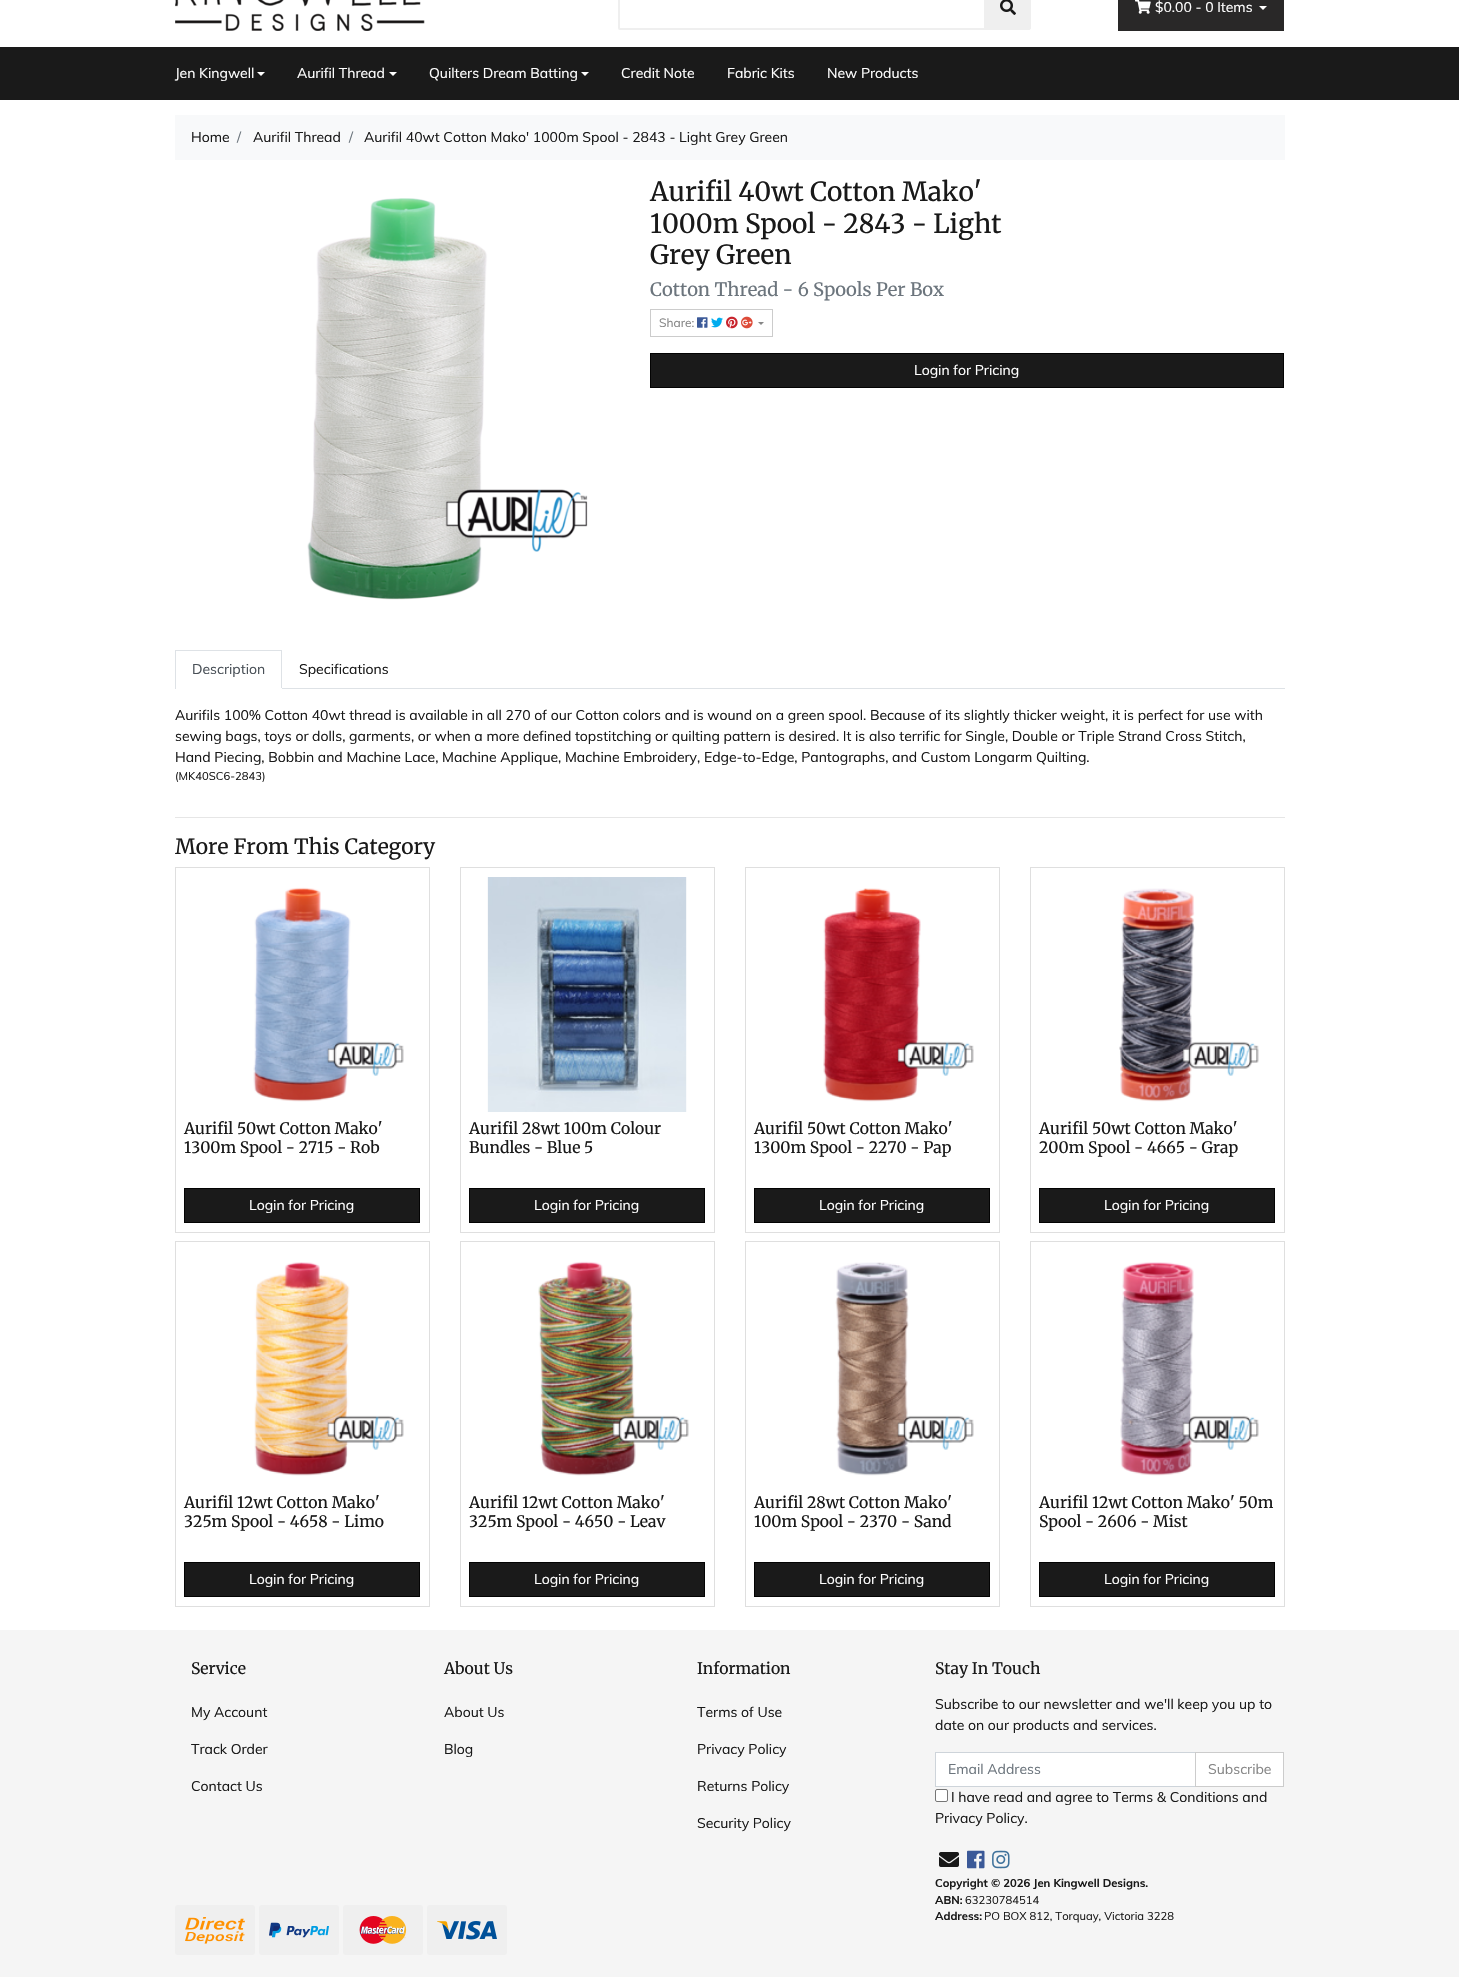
void draw(SkCanvas* canvas) {
  SkPaint paint;
  paint.setAntiAlias(true);
  auto face = [&](const char* family, int weight, float size, bool italic = false) {
    SkFontStyle style(weight, SkFontStyle::kNormal_Width,
      italic ? SkFontStyle::kItalic_Slant : SkFontStyle::kUpright_Slant);
    SkFont result(fontMgr->matchFamilyStyle(family, style), size);
    result.setSubpixel(true);
    return result;
  };
  auto paste = [&](const char* path, float x, float y, float w, float h) {
    auto image = SkImages::DeferredFromEncodedData(SkData::MakeFromFileName(path));
    canvas->drawImageRect(image, SkRect::MakeXYWH(x, y, w, h), SkSamplingOptions());
  };
  auto shape = [&](const char* data, bool evenOdd = false) {
    SkPath result = *SkParsePath::FromSVGString(data);
    if (evenOdd) result.setFillType(SkPathFillType::kEvenOdd);
    return result;
  };
  canvas->clear(0xffffffff);
  paste("img/1.png", 175, 0, 250, 31);
  paint.setStroke(true);
  paint.setStrokeWidth(2);
  paint.setColor(0xffefefef);
  canvas->drawPath(shape("M620-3H985V29H620C619.5 29 619 28.5 619 28V-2C619-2.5 619.5-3 620-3Z"), paint);
  paint.setStroke(false);
  canvas->drawPath(shape("M985.5-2.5H1029C1030-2.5 1030.5-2 1030.5-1V28C1030.5 29 1030 29.5 1029 29.5H985.5Z"), paint);
  paint.setStroke(true);
  paint.setStrokeWidth(1);
  canvas->drawPath(shape("M985.5-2.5H1029C1030-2.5 1030.5-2 1030.5-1V28C1030.5 29 1030 29.5 1029 29.5H985.5Z"), paint);
  paste("img/2.png", 1000, 0, 16, 15);
  paint.setStroke(false);
  paint.setColor(0xff292828);
  canvas->drawRect(SkRect::MakeXYWH(1118, 0, 166, 31), paint);
  paste("img/3.png", 1135, 0, 16, 14);
  paint.setColor(0xffffffff);
  canvas->drawPath(shape("M1259 6H1267L1263 10Z"), paint);
  paint.setColor(0xff1a1a1a);
  canvas->drawRect(SkRect::MakeXYWH(0, 47, 1459, 53), paint);
  paint.setColor(0xffffffff);
  canvas->drawPath(shape("M257 72H265L261 76Z"), paint);
  canvas->drawPath(shape("M389 72H397L393 76Z"), paint);
  canvas->drawPath(shape("M581 72H589L585 76Z"), paint);
  paint.setColor(0xfff8f9fa);
  canvas->drawRect(SkRect::MakeXYWH(175, 115, 1110, 45), paint);
  paste("img/4.png", 307, 198, 281, 402);
  paint.setStroke(true);
  paint.setColor(0xffcccccc);
  canvas->drawRect(SkRect::MakeXYWH(650.5f, 309.5f, 122, 27), paint);
  paste("img/5.png", 697, 317, 11, 11);
  paste("img/6.png", 711, 317, 12, 11);
  paste("img/7.png", 726, 316, 12, 13);
  paste("img/8.png", 741, 316, 12, 13);
  paint.setStroke(false);
  paint.setColor(0xff868686);
  canvas->drawPath(shape("M758 322H764L761 325Z"), paint);
  paint.setColor(0xff1a1a1a);
  canvas->drawRect(SkRect::MakeXYWH(650.5f, 353.5f, 633, 34), paint);
  paint.setStroke(true);
  paint.setColor(0xff030303);
  canvas->drawRect(SkRect::MakeXYWH(650.5f, 353.5f, 633, 34), paint);
  paint.setStroke(false);
  {
    const struct { float x, y, w, h; SkColor color; } items[] = {
      {282, 688, 1003, 1, 0xffdee2e6},
      {175, 650, 107, 1, 0xffdee2e6},
      {281, 650, 1, 39, 0xffdee2e6},
      {281, 688, 1, 1, 0xffffffff},
      {175, 650, 1, 39, 0xffdee2e6},
      {175, 817, 1110, 1, 0xffe6e6e6},
    };
    for (auto [x, y, w, h, color] : items) {
      paint.setColor(color);
      canvas->drawRect(SkRect::MakeXYWH(x, y, w, h), paint);
    }
  }
  paint.setStroke(true);
  paint.setColor(0xffdfdfdf);
  canvas->drawRect(SkRect::MakeXYWH(175.5f, 867.5f, 254, 365), paint);
  paste("img/9.png", 253, 887, 151, 215);
  paint.setStroke(false);
  paint.setColor(0xff1a1a1a);
  canvas->drawRect(SkRect::MakeXYWH(184.5f, 1188.5f, 235, 34), paint);
  paint.setStroke(true);
  paint.setColor(0xff030303);
  canvas->drawRect(SkRect::MakeXYWH(184.5f, 1188.5f, 235, 34), paint);
  paint.setColor(0xffdfdfdf);
  canvas->drawRect(SkRect::MakeXYWH(460.5f, 867.5f, 254, 365), paint);
  paste("img/10.png", 487, 877, 200, 235);
  paint.setStroke(false);
  paint.setColor(0xff1a1a1a);
  canvas->drawRect(SkRect::MakeXYWH(469.5f, 1188.5f, 235, 34), paint);
  paint.setStroke(true);
  paint.setColor(0xff030303);
  canvas->drawRect(SkRect::MakeXYWH(469.5f, 1188.5f, 235, 34), paint);
  paint.setColor(0xffdfdfdf);
  canvas->drawRect(SkRect::MakeXYWH(745.5f, 867.5f, 254, 365), paint);
  paste("img/11.png", 823, 888, 151, 214);
  paint.setStroke(false);
  paint.setColor(0xff1a1a1a);
  canvas->drawRect(SkRect::MakeXYWH(754.5f, 1188.5f, 235, 34), paint);
  paint.setStroke(true);
  paint.setColor(0xff030303);
  canvas->drawRect(SkRect::MakeXYWH(754.5f, 1188.5f, 235, 34), paint);
  paint.setColor(0xffdfdfdf);
  canvas->drawRect(SkRect::MakeXYWH(1030.5f, 867.5f, 254, 365), paint);
  paste("img/12.png", 1119, 888, 140, 214);
  paint.setStroke(false);
  paint.setColor(0xff1a1a1a);
  canvas->drawRect(SkRect::MakeXYWH(1039.5f, 1188.5f, 235, 34), paint);
  paint.setStroke(true);
  paint.setColor(0xff030303);
  canvas->drawRect(SkRect::MakeXYWH(1039.5f, 1188.5f, 235, 34), paint);
  paint.setColor(0xffdfdfdf);
  canvas->drawRect(SkRect::MakeXYWH(175.5f, 1241.5f, 254, 365), paint);
  paste("img/13.png", 254, 1262, 150, 214);
  paint.setStroke(false);
  paint.setColor(0xff1a1a1a);
  canvas->drawRect(SkRect::MakeXYWH(184.5f, 1562.5f, 235, 34), paint);
  paint.setStroke(true);
  paint.setColor(0xff030303);
  canvas->drawRect(SkRect::MakeXYWH(184.5f, 1562.5f, 235, 34), paint);
  paint.setColor(0xffdfdfdf);
  canvas->drawRect(SkRect::MakeXYWH(460.5f, 1241.5f, 254, 365), paint);
  paste("img/14.png", 538, 1261, 151, 215);
  paint.setStroke(false);
  paint.setColor(0xff1a1a1a);
  canvas->drawRect(SkRect::MakeXYWH(469.5f, 1562.5f, 235, 34), paint);
  paint.setStroke(true);
  paint.setColor(0xff030303);
  canvas->drawRect(SkRect::MakeXYWH(469.5f, 1562.5f, 235, 34), paint);
  paint.setColor(0xffdfdfdf);
  canvas->drawRect(SkRect::MakeXYWH(745.5f, 1241.5f, 254, 365), paint);
  paste("img/15.png", 835, 1262, 139, 214);
  paint.setStroke(false);
  paint.setColor(0xff1a1a1a);
  canvas->drawRect(SkRect::MakeXYWH(754.5f, 1562.5f, 235, 34), paint);
  paint.setStroke(true);
  paint.setColor(0xff030303);
  canvas->drawRect(SkRect::MakeXYWH(754.5f, 1562.5f, 235, 34), paint);
  paint.setColor(0xffdfdfdf);
  canvas->drawRect(SkRect::MakeXYWH(1030.5f, 1241.5f, 254, 365), paint);
  paste("img/16.png", 1120, 1262, 139, 214);
  paint.setStroke(false);
  paint.setColor(0xff1a1a1a);
  canvas->drawRect(SkRect::MakeXYWH(1039.5f, 1562.5f, 235, 34), paint);
  paint.setStroke(true);
  paint.setColor(0xff030303);
  canvas->drawRect(SkRect::MakeXYWH(1039.5f, 1562.5f, 235, 34), paint);
  paint.setStroke(false);
  paint.setColor(0xfff5f5f5);
  canvas->drawRect(SkRect::MakeXYWH(0, 1630, 1459, 347), paint);
  paint.setColor(0xffffffff);
  canvas->drawRect(SkRect::MakeXYWH(935.5f, 1752.5f, 260, 34), paint);
  paint.setStroke(true);
  paint.setColor(0xffced4da);
  canvas->drawRect(SkRect::MakeXYWH(935.5f, 1752.5f, 260, 34), paint);
  paint.setStroke(false);
  paint.setColor(0xffffffff);
  canvas->drawRect(SkRect::MakeXYWH(1195.5f, 1752.5f, 88, 34), paint);
  paint.setStroke(true);
  paint.setColor(0xffcccccc);
  canvas->drawRect(SkRect::MakeXYWH(1195.5f, 1752.5f, 88, 34), paint);
  paint.setStroke(false);
  paint.setColor(0xffffffff);
  canvas->drawRoundRect(SkRect::MakeXYWH(935.5f, 1789.5f, 12, 12), 1.5f, 1.5f, paint);
  paint.setStroke(true);
  paint.setColor(0xff767676);
  canvas->drawRoundRect(SkRect::MakeXYWH(935.5f, 1789.5f, 12, 12), 1.5f, 1.5f, paint);
  paste("img/17.png", 939, 1852, 20, 15);
  paste("img/18.png", 967, 1850, 18, 19);
  paste("img/19.png", 992, 1850, 18, 19);
  paint.setStroke(false);
  paint.setColor(0xffefefef);
  canvas->drawRoundRect(SkRect::MakeXYWH(175, 1905, 80, 50), 3, 3, paint);
  paste("img/20.png", 185, 1917, 60, 27);
  canvas->drawRoundRect(SkRect::MakeXYWH(259, 1905, 80, 50), 3, 3, paint);
  paste("img/21.png", 269, 1922, 60, 16);
  canvas->drawRoundRect(SkRect::MakeXYWH(343, 1905, 80, 50), 3, 3, paint);
  paste("img/22.png", 359, 1916, 48, 28);
  canvas->drawRoundRect(SkRect::MakeXYWH(427, 1905, 80, 50), 3, 3, paint);
  paste("img/23.png", 437, 1921, 60, 19);
  auto f0 = face("Muli", 400, 14);
  paint.setColor(0xffffffff);
  {
    const struct { const char* s; float x, y; } items[] = {
      {"$0.00 - 0 Items", 1155, 12},
      {"Jen Kingwell", 175, 78},
      {"Aurifil Thread", 297, 78},
      {"Quilters Dream Batting", 429, 78},
      {"Credit Note", 621, 78},
      {"Fabric Kits", 727, 78},
      {"New Products", 827, 78},
    };
    for (auto [s, x, y] : items) {
      canvas->drawString(s, x, y, f0, paint);
    }
  }
  paint.setColor(0xff191919);
  canvas->drawString("Home", 191, 142, f0, paint);
  paint.setColor(0xff6c757d);
  canvas->drawString("/", 237, 142, f0, paint);
  paint.setColor(0xff191919);
  canvas->drawString("Aurifil Thread", 253, 142, f0, paint);
  paint.setColor(0xff6c757d);
  canvas->drawString("/", 349, 142, f0, paint);
  paint.setColor(0xff191919);
  canvas->drawString("Aurifil 40wt Cotton Mako' 1000m Spool - 2843 - Light Grey Green", 364, 142, f0, paint);
  auto f1 = face("Merriweather", 400, 26.25f);
  {
    const struct { const char* s; float x, y; } items[] = {
      {"Aurifil 40wt Cotton Mako'", 650, 201},
      {"1000m Spool - 2843 - Light", 650, 233},
      {"Grey Green", 650, 264},
    };
    for (auto [s, x, y] : items) {
      canvas->drawString(s, x, y, f1, paint);
    }
  }
  auto f2 = face("Merriweather", 400, 18.4f);
  paint.setColor(0xff6c757d);
  canvas->drawString("Cotton Thread - 6 Spools Per Box", 650, 296, f2, paint);
  auto f3 = face("Muli", 400, 12);
  paint.setColor(0xff868686);
  canvas->drawString("Share:", 659, 327, f3, paint);
  paint.setColor(0xffffffff);
  canvas->drawString("Login for Pricing", 914, 375, f0, paint);
  paint.setColor(0xff495057);
  canvas->drawString("Description", 192, 674, f0, paint);
  paint.setColor(0xff191919);
  {
    const struct { const char* s; float x, y; } items[] = {
      {"Specifications", 299, 674},
      {"Aurifils 100% Cotton 40wt thread is available in all 270 of our Cotton colors and is wound on a green spool. Because of its slightly thicker weight, it is perfect for use with", 175, 720},
      {"sewing bags, toys or dolls, garments, or when a more defined topstitching or quilting pattern is desired. It is also terrific for Single, Double or Triple Strand Cross Stitch,", 175, 741},
      {"Hand Piecing, Bobbin and Machine Lace, Machine Applique, Machine Embroidery, Edge-to-Edge, Pantographs, and Custom Longarm Quilting.", 175, 762},
    };
    for (auto [s, x, y] : items) {
      canvas->drawString(s, x, y, f0, paint);
    }
  }
  auto f4 = face("Muli", 400, 11.25f);
  canvas->drawString("(MK40SC6-2843)", 175, 780, f4, paint);
  auto f5 = face("Merriweather", 400, 21);
  canvas->drawString("More From This Category", 175, 854, f5, paint);
  auto f6 = face("Merriweather", 400, 15.75f);
  canvas->drawString("Aurifil 50wt Cotton Mako'", 184, 1134, f6, paint);
  canvas->drawString("1300m Spool - 2715 - Rob", 184, 1153, f6, paint);
  paint.setColor(0xffffffff);
  canvas->drawString("Login for Pricing", 249, 1210, f0, paint);
  paint.setColor(0xff191919);
  canvas->drawString("Aurifil 28wt 100m Colour", 469, 1134, f6, paint);
  canvas->drawString("Bundles - Blue 5", 469, 1153, f6, paint);
  paint.setColor(0xffffffff);
  canvas->drawString("Login for Pricing", 534, 1210, f0, paint);
  paint.setColor(0xff191919);
  canvas->drawString("Aurifil 50wt Cotton Mako'", 754, 1134, f6, paint);
  canvas->drawString("1300m Spool - 2270 - Pap", 754, 1153, f6, paint);
  paint.setColor(0xffffffff);
  canvas->drawString("Login for Pricing", 819, 1210, f0, paint);
  paint.setColor(0xff191919);
  canvas->drawString("Aurifil 50wt Cotton Mako'", 1039, 1134, f6, paint);
  canvas->drawString("200m Spool - 4665 - Grap", 1039, 1153, f6, paint);
  paint.setColor(0xffffffff);
  canvas->drawString("Login for Pricing", 1104, 1210, f0, paint);
  paint.setColor(0xff191919);
  canvas->drawString("Aurifil 12wt Cotton Mako'", 184, 1508, f6, paint);
  canvas->drawString("325m Spool - 4658 - Limo", 184, 1527, f6, paint);
  paint.setColor(0xffffffff);
  canvas->drawString("Login for Pricing", 249, 1584, f0, paint);
  paint.setColor(0xff191919);
  canvas->drawString("Aurifil 12wt Cotton Mako'", 469, 1508, f6, paint);
  canvas->drawString("325m Spool - 4650 - Leav", 469, 1527, f6, paint);
  paint.setColor(0xffffffff);
  canvas->drawString("Login for Pricing", 534, 1584, f0, paint);
  paint.setColor(0xff191919);
  canvas->drawString("Aurifil 28wt Cotton Mako'", 754, 1508, f6, paint);
  canvas->drawString("100m Spool - 2370 - Sand", 754, 1527, f6, paint);
  paint.setColor(0xffffffff);
  canvas->drawString("Login for Pricing", 819, 1584, f0, paint);
  paint.setColor(0xff191919);
  canvas->drawString("Aurifil 12wt Cotton Mako' 50m", 1039, 1508, f6, paint);
  canvas->drawString("Spool - 2606 - Mist", 1039, 1527, f6, paint);
  paint.setColor(0xffffffff);
  canvas->drawString("Login for Pricing", 1104, 1584, f0, paint);
  paint.setColor(0xff191919);
  canvas->drawString("Service", 191, 1674, f6, paint);
  {
    const struct { const char* s; float x, y; } items[] = {
      {"My Account", 191, 1717},
      {"Track Order", 191, 1754},
      {"Contact Us", 191, 1791},
    };
    for (auto [s, x, y] : items) {
      canvas->drawString(s, x, y, f0, paint);
    }
  }
  canvas->drawString("About Us", 444, 1674, f6, paint);
  canvas->drawString("About Us", 444, 1717, f0, paint);
  canvas->drawString("Blog", 444, 1754, f0, paint);
  canvas->drawString("Information", 697, 1674, f6, paint);
  {
    const struct { const char* s; float x, y; } items[] = {
      {"Terms of Use", 697, 1717},
      {"Privacy Policy", 697, 1754},
      {"Returns Policy", 697, 1791},
      {"Security Policy", 697, 1828},
    };
    for (auto [s, x, y] : items) {
      canvas->drawString(s, x, y, f0, paint);
    }
  }
  canvas->drawString("Stay In Touch", 935, 1674, f6, paint);
  canvas->drawString("Subscribe to our newsletter and we'll keep you up to", 935, 1709, f0, paint);
  canvas->drawString("date on our products and services.", 935, 1730, f0, paint);
  paint.setColor(0xff6c757d);
  canvas->drawString("Email Address", 948, 1774, f0, paint);
  paint.setColor(0xff868686);
  canvas->drawString("Subscribe", 1208, 1774, f0, paint);
  paint.setColor(0xff191919);
  canvas->drawString("I have read and agree to Terms & Conditions and", 951, 1802, f0, paint);
  canvas->drawString("Privacy Policy.", 935, 1823, f0, paint);
  auto f7 = face("Muli", 700, 11.25f);
  canvas->drawString("Copyright © 2026 Jen Kingwell Designs.", 935, 1887, f7, paint);
  canvas->drawString("ABN:", 935, 1904, f7, paint);
  canvas->drawString("63230784514", 965, 1904, f4, paint);
  canvas->drawString("Address:", 935, 1920, f7, paint);
  canvas->drawString("PO BOX 812, Torquay, Victoria 3228", 984, 1920, f4, paint);
}
